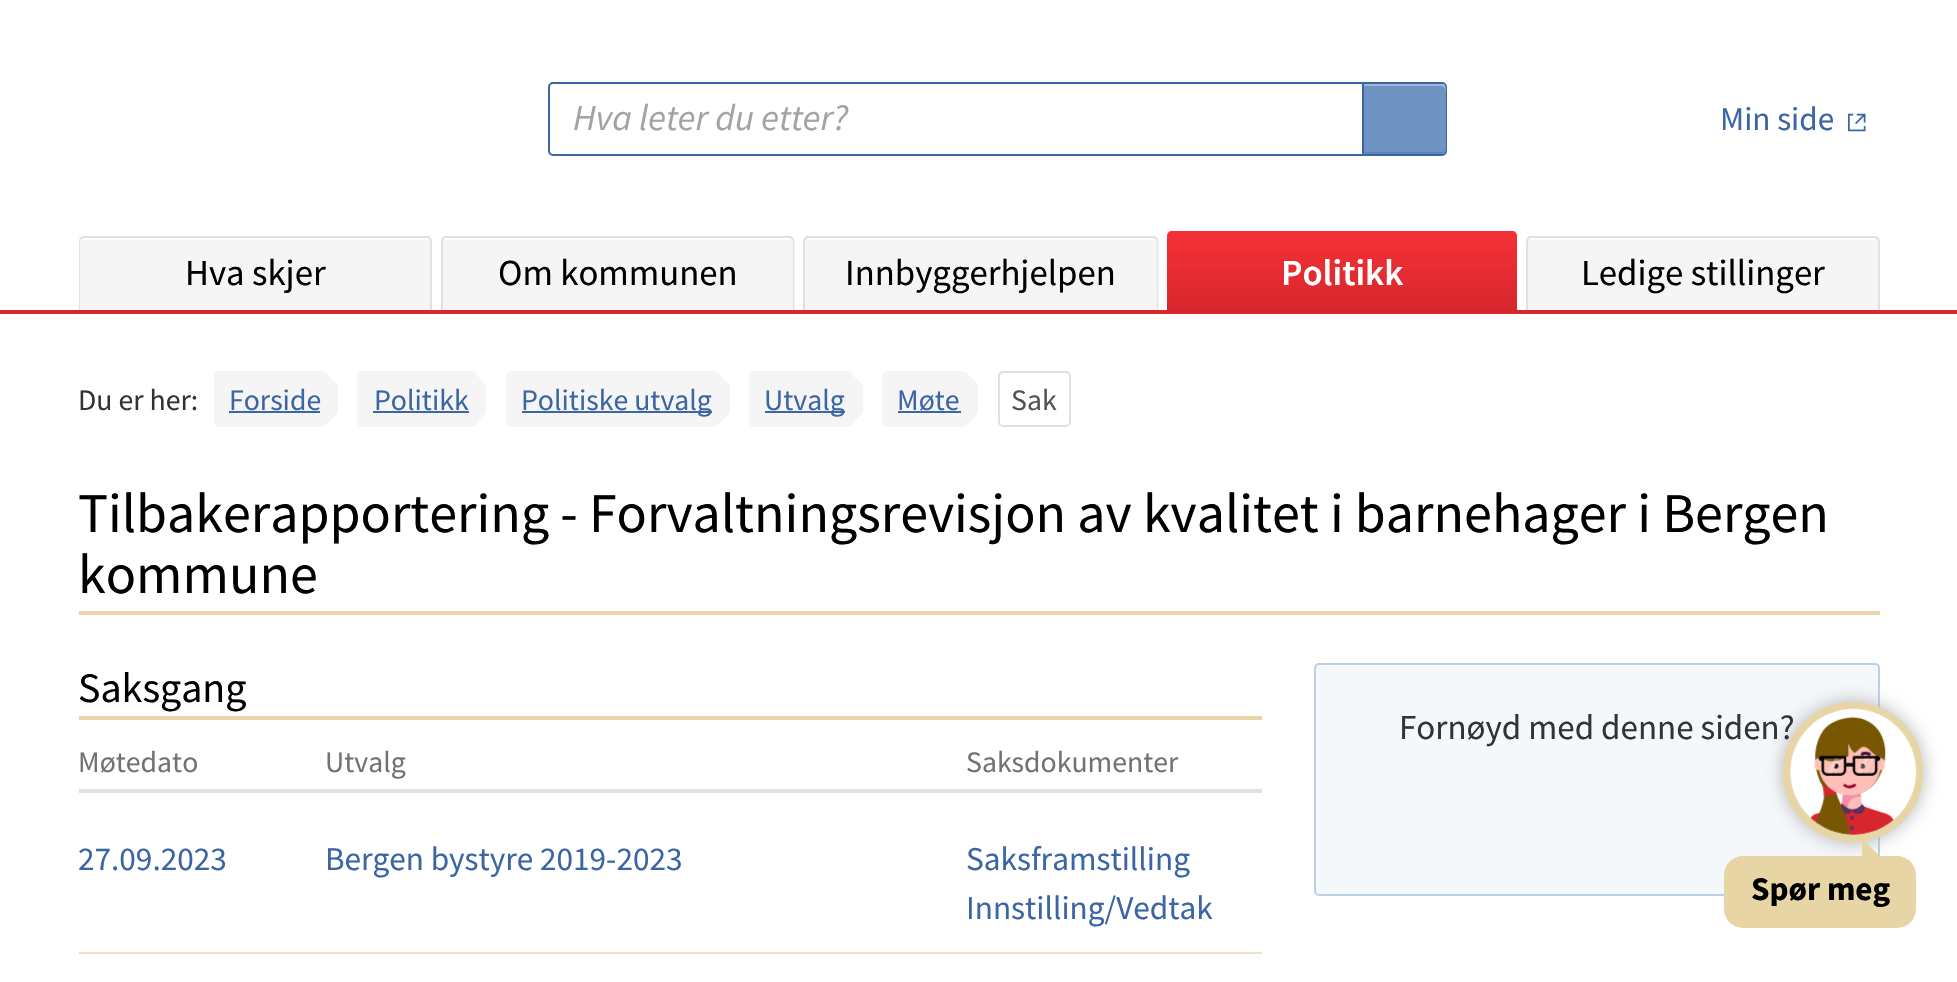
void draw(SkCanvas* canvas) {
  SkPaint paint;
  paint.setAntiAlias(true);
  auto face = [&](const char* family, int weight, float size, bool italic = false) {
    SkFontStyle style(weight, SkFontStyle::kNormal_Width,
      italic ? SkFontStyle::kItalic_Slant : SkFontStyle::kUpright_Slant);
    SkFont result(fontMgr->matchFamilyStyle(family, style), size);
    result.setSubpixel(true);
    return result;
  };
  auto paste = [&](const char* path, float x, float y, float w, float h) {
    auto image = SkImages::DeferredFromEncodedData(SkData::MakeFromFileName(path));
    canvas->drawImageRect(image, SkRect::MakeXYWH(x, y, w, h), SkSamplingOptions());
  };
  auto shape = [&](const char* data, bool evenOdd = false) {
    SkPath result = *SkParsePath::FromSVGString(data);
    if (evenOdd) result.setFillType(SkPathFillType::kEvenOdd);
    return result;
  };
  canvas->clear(0xffffffff);
  paint.setColor(0xffd7272d);
  canvas->drawRect(SkRect::MakeXYWH(0, 310, 1957, 4), paint);
  paint.setStroke(true);
  paint.setStrokeWidth(2);
  paint.setColor(0xff3b65a3);
  canvas->drawRoundRect(SkRect::MakeXYWH(549, 83, 897, 72), 4, 4, paint);
  paint.setStroke(false);
  paint.setColor(0xff6f94c3);
  canvas->drawPath(shape("M1362 84H1441C1444 84 1446 86 1446 89V150C1446 152 1444 154 1442 154H1362Z"), paint);
  paint.setColor(0x523b65a3);
  canvas->drawPath(shape("M1363 152V154H1442C1444 154 1446 152 1446 150V149C1446 151 1444 152 1442 152Z"), paint);
  paint.setColor(0x52ffffff);
  canvas->drawPath(shape("M1363 86H1440C1443 86 1446 88 1446 91V89C1446 86 1444 84 1441 84H1363Z"), paint);
  paint.setColor(0xff3b65a3);
  canvas->drawRect(SkRect::MakeXYWH(1362, 84, 2, 70), paint);
  paste("img/1.png", 1848, 113, 18, 19);
  paint.setColor(0xfff5f5f5);
  canvas->drawPath(shape("M84 236H427C430 236 432 238 432 241V310H79V241C79 238 81 236 84 236Z"), paint);
  paint.setColor(0xffffffff);
  canvas->drawPath(shape("M84 240H427C429 240 430 241 430 243V310H431V242C431 240 429 238 427 238H85C83 238 82 239 81 241Z"), paint);
  paint.setColor(0xffe0e0e0);
  canvas->drawPath(shape("M84 236H427C430 236 432 239 432 242V310H79V242C79 239 81 236 84 236ZM84 238H427C429 238 430 240 430 242V310H80V242C80 240 82 238 84 238Z", true), paint);
  paint.setColor(0xfff5f5f5);
  canvas->drawPath(shape("M446 236H790C793 236 795 238 795 241V310H441V241C441 238 443 236 446 236Z"), paint);
  paint.setColor(0xffffffff);
  canvas->drawPath(shape("M446 240H789C791 240 793 241 793 243L792 240L790 238H447C444 238 443 240 443 243C443 241 444 240 446 240Z"), paint);
  paint.setColor(0xffe0e0e0);
  canvas->drawPath(shape("M446 236H789C792 236 794 239 794 242V310H441V242C441 239 443 236 446 236ZM446 238H789C791 238 793 240 793 242V310H443V242C443 240 444 238 446 238Z", true), paint);
  paint.setColor(0xfff5f5f5);
  canvas->drawPath(shape("M808 236H1154C1157 236 1159 238 1159 241V310H803V241C803 238 805 236 808 236Z"), paint);
  paint.setColor(0xffffffff);
  canvas->drawPath(shape("M808 240H1153C1155 240 1157 241 1157 243C1157 240 1156 238 1153 238H808L806 240L805 243C805 241 807 240 808 240Z"), paint);
  paint.setColor(0xffe0e0e0);
  canvas->drawPath(shape("M808 236H1153C1156 236 1158 239 1158 242V310H803V242C803 239 806 236 808 236ZM808 238H1153C1155 238 1157 240 1157 242V310H805V242C805 240 807 238 808 238Z", true), paint);
  {
    const SkColor colors[] = {0xfff53137, 0xffd7272d};
    const float stops[] = {0, 1};
    const SkPoint ends[] = {{1342, 231}, {1342, 310}};
    paint.setShader(SkGradientShader::MakeLinear(ends, colors, stops, 2, SkTileMode::kClamp));
    paint.setAlpha(255);
  }
  canvas->drawPath(shape("M1172 231H1512C1515 231 1517 233 1517 236V310H1167V236C1167 233 1169 231 1172 231Z"), paint);
  paint.setShader(nullptr);
  paint.setColor(0xfff5f5f5);
  canvas->drawPath(shape("M1531 236H1875C1878 236 1880 238 1880 241V310H1526V241C1526 238 1528 236 1531 236Z"), paint);
  paint.setColor(0xffffffff);
  canvas->drawPath(shape("M1531 240H1874C1876 240 1878 241 1878 243L1877 240L1875 238H1532C1529 238 1528 240 1528 243C1528 241 1529 240 1531 240Z"), paint);
  paint.setColor(0xffe0e0e0);
  canvas->drawPath(shape("M1531 236H1874C1877 236 1880 239 1880 242V310H1526V242C1526 239 1528 236 1531 236ZM1531 238H1874C1876 238 1878 240 1878 242V310H1528V242C1528 240 1529 238 1531 238Z", true), paint);
  paint.setColor(0xfff5f5f5);
  canvas->drawPath(shape("M325 373L338 385V413L325 425C324 425 324 423 324 422V376C324 375 324 373 325 373Z"), paint);
  canvas->drawPath(shape("M219 371H320C325 371 329 375 329 380V418C329 423 325 427 320 427H219C216 427 214 425 214 422V376C214 373 216 371 219 371Z"), paint);
  paint.setColor(0xff3b65a3);
  canvas->drawRect(SkRect::MakeXYWH(229, 411, 91, 2), paint);
  paint.setColor(0xfff5f5f5);
  canvas->drawPath(shape("M472 374L474 372L486 385V413L474 426L472 424Z"), paint);
  canvas->drawPath(shape("M362 371H469C474 371 478 375 478 380V418C478 423 474 427 469 427H362C359 427 357 425 357 422V376C357 373 359 371 362 371Z"), paint);
  paint.setColor(0xff3b65a3);
  canvas->drawRect(SkRect::MakeXYWH(373, 411, 96, 2), paint);
  paint.setColor(0xfff5f5f5);
  canvas->drawPath(shape("M717 373L730 385V413L717 425C716 425 716 423 716 422V376C716 375 716 373 717 373Z"), paint);
  canvas->drawPath(shape("M511 371H712C717 371 721 375 721 380V418C721 423 717 427 712 427H511C508 427 506 425 506 422V376C506 373 508 371 511 371Z"), paint);
  paint.setColor(0xff3b65a3);
  canvas->drawRect(SkRect::MakeXYWH(522, 411, 190, 2), paint);
  paint.setColor(0xfff5f5f5);
  canvas->drawPath(shape("M850 373L863 385V413L850 425C849 425 849 423 849 422V376C849 375 849 373 850 373Z"), paint);
  canvas->drawPath(shape("M754 371H845C850 371 854 375 854 380V418C854 423 850 427 845 427H754C751 427 749 425 749 422V376C749 373 751 371 754 371Z"), paint);
  paint.setColor(0xff3b65a3);
  canvas->drawRect(SkRect::MakeXYWH(765, 411, 80, 2), paint);
  paint.setColor(0xfff5f5f5);
  canvas->drawPath(shape("M964 375L966 372L978 385V413L966 426L964 423Z"), paint);
  canvas->drawPath(shape("M887 371H961C966 371 970 375 970 380V418C970 423 966 427 961 427H887C884 427 882 425 882 422V376C882 373 884 371 887 371Z"), paint);
  paint.setColor(0xff3b65a3);
  canvas->drawRect(SkRect::MakeXYWH(898, 411, 63, 2), paint);
  paint.setStroke(true);
  paint.setColor(0xffe0e0e0);
  canvas->drawRoundRect(SkRect::MakeXYWH(999, 372, 71, 54), 4, 4, paint);
  paint.setStroke(false);
  {
    const struct { float x, y, w, h; SkColor color; } items[] = {
      {79, 611, 1801, 4, 0xffe7d5a6},
      {79, 716, 1183, 4, 0xffe7d5a6},
      {79, 789, 1183, 4, 0xffe0e0e0},
      {79, 952, 1183, 2, 0xffeee1c0},
    };
    for (auto [x, y, w, h, color] : items) {
      paint.setColor(color);
      canvas->drawRect(SkRect::MakeXYWH(x, y, w, h), paint);
    }
  }
  paint.setColor(0xfff5f8fb);
  canvas->drawRoundRect(SkRect::MakeXYWH(1315, 664, 564, 231), 4, 4, paint);
  paint.setStroke(true);
  paint.setColor(0xffbdcfe4);
  canvas->drawRoundRect(SkRect::MakeXYWH(1315, 664, 564, 231), 4, 4, paint);
  paint.setStroke(false);
  paint.setColor(0xffb3b3b3);
  paint.setMaskFilter(SkMaskFilter::MakeBlur(kNormal_SkBlurStyle, 9));
  canvas->drawRoundRect(SkRect::MakeXYWH(1783, 702, 140, 140), 70, 70, paint);
  paint.setMaskFilter(nullptr);
  paint.setColor(0xffe7d5a6);
  canvas->drawRoundRect(SkRect::MakeXYWH(1724, 856, 192, 72), 19, 19, paint);
  auto f0 = face("Source Sans Pro", 400, 36.75f, true);
  paint.setColor(0xffa3a3a3);
  canvas->drawString("Hva leter du etter?", 573, 130, f0, paint);
  auto f1 = face("Source Sans Pro", 400, 33.25f);
  paint.setColor(0xff3b65a3);
  canvas->drawString("Min side", 1720, 130, f1, paint);
  auto f2 = face("Source Sans Pro", 400, 36.75f);
  paint.setColor(0xff000000);
  {
    const struct { const char* s; float x, y; } items[] = {
      {"Hva skjer", 185, 285},
      {"Om kommunen", 498, 285},
      {"Innbyggerhjelpen", 845, 285},
    };
    for (auto [s, x, y] : items) {
      canvas->drawString(s, x, y, f2, paint);
    }
  }
  auto f3 = face("Source Sans Pro", 600, 36.75f);
  paint.setColor(0xffffffff);
  canvas->drawString("Politikk", 1281, 285, f3, paint);
  paint.setColor(0xff000000);
  canvas->drawString("Ledige stillinger", 1581, 285, f2, paint);
  auto f4 = face("Source Sans Pro", 400, 29.75f);
  paint.setColor(0xff333333);
  canvas->drawString("Du er her:", 78, 410, f4, paint);
  paint.setColor(0xff3b65a3);
  {
    const struct { const char* s; float x, y; } items[] = {
      {"Forside", 229, 410},
      {"Politikk", 374, 410},
      {"Politiske utvalg", 521, 410},
      {"Utvalg", 764, 410},
      {"Møte", 897, 410},
    };
    for (auto [s, x, y] : items) {
      canvas->drawString(s, x, y, f4, paint);
    }
  }
  paint.setColor(0xff535353);
  canvas->drawString("Sak", 1011, 410, f4, paint);
  auto f5 = face("Source Sans Pro", 400, 56);
  paint.setColor(0xff000000);
  canvas->drawString("Tilbakerapportering - Forvaltningsrevisjon av kvalitet i barnehager i Bergen", 78, 532, f5, paint);
  canvas->drawString("kommune", 78, 593, f5, paint);
  auto f6 = face("Source Sans Pro", 400, 42);
  canvas->drawString("Saksgang", 78, 702, f6, paint);
  paint.setColor(0xff727272);
  {
    const struct { const char* s; float x, y; } items[] = {
      {"Møtedato", 78, 772},
      {"Utvalg", 325, 772},
      {"Saksdokumenter", 966, 772},
    };
    for (auto [s, x, y] : items) {
      canvas->drawString(s, x, y, f4, paint);
    }
  }
  paint.setColor(0xff3b65a3);
  {
    const struct { const char* s; float x, y; } items[] = {
      {"27.09.2023", 78, 870},
      {"Bergen bystyre 2019-2023", 325, 870},
      {"Saksframstilling", 966, 870},
      {"Innstilling/Vedtak", 966, 919},
    };
    for (auto [s, x, y] : items) {
      canvas->drawString(s, x, y, f1, paint);
    }
  }
  auto f7 = face("Source Sans Pro", 400, 35);
  paint.setColor(0xff333333);
  canvas->drawString("Fornøyd med denne siden?", 1399, 739, f7, paint);
  paint.setColor(0xffe7d5a6);
  canvas->drawCircle(1853, 772, 66.5f, paint);
  paint.setStroke(true);
  paint.setStrokeWidth(7);
  canvas->drawCircle(1853, 772, 66.5f, paint);
  paste("img/2.png", 1790, 708, 127, 127);
  paint.setStroke(false);
  canvas->drawPath(shape("M1862 873V838L1879.5 856Z"), paint);
  auto f8 = face("Source Sans Pro", 700, 33.25f);
  paint.setColor(0xff000000);
  canvas->drawString("Spør meg", 1751, 900, f8, paint);
}
